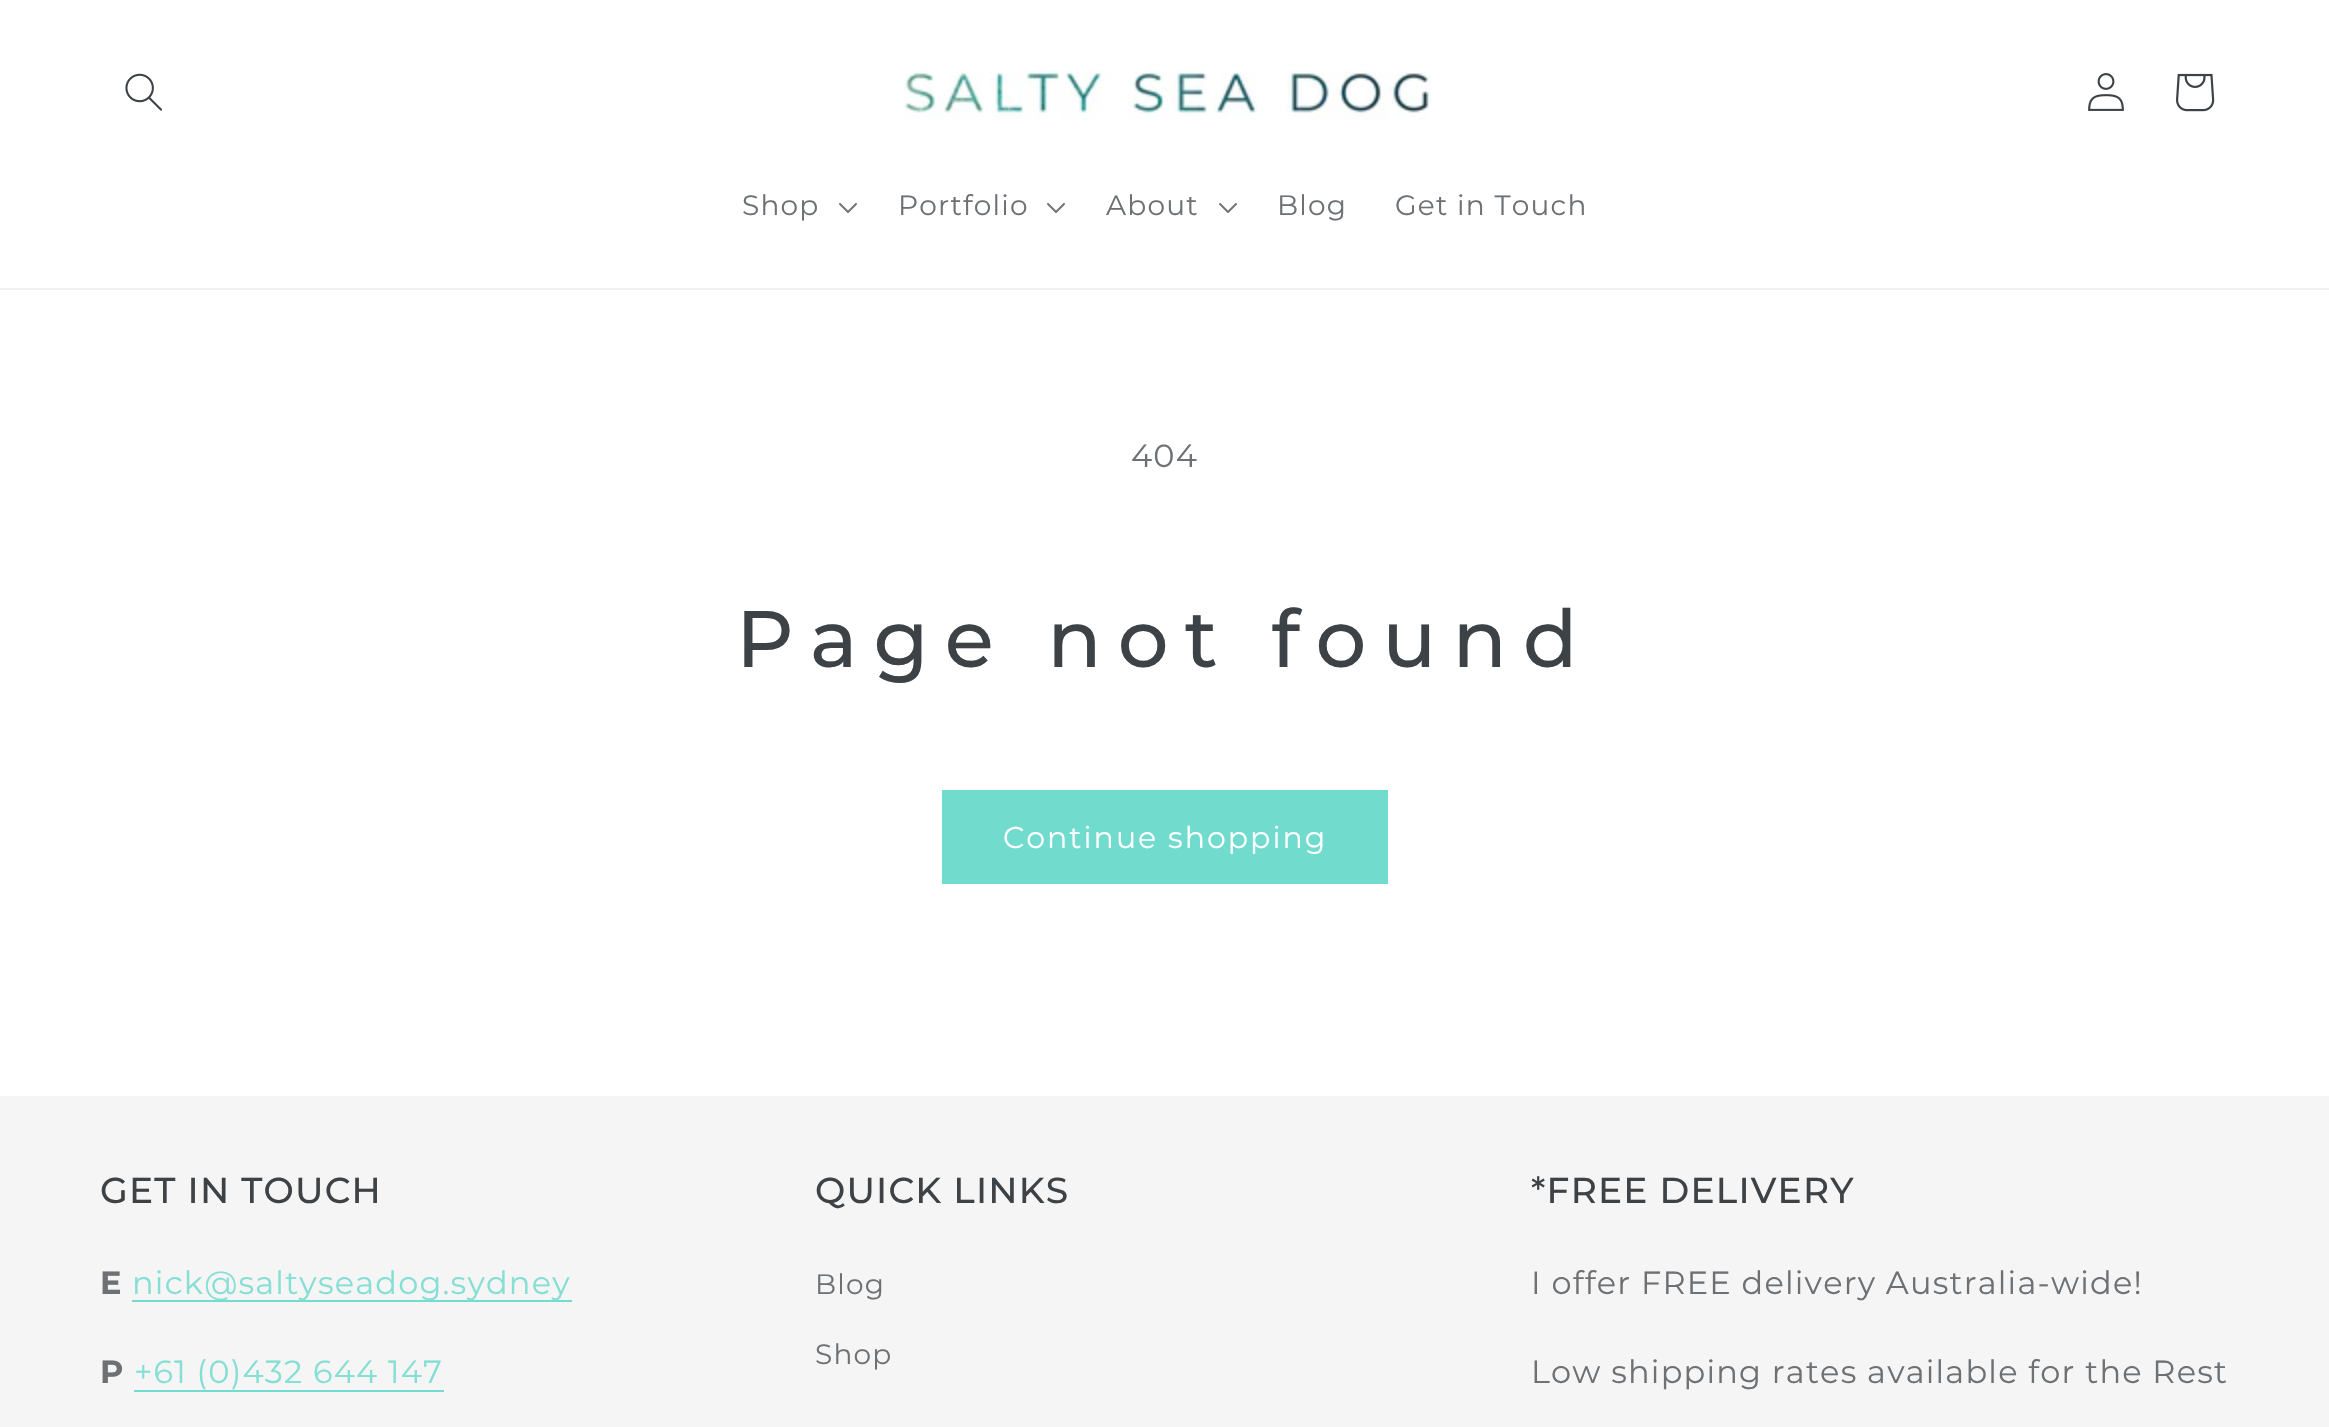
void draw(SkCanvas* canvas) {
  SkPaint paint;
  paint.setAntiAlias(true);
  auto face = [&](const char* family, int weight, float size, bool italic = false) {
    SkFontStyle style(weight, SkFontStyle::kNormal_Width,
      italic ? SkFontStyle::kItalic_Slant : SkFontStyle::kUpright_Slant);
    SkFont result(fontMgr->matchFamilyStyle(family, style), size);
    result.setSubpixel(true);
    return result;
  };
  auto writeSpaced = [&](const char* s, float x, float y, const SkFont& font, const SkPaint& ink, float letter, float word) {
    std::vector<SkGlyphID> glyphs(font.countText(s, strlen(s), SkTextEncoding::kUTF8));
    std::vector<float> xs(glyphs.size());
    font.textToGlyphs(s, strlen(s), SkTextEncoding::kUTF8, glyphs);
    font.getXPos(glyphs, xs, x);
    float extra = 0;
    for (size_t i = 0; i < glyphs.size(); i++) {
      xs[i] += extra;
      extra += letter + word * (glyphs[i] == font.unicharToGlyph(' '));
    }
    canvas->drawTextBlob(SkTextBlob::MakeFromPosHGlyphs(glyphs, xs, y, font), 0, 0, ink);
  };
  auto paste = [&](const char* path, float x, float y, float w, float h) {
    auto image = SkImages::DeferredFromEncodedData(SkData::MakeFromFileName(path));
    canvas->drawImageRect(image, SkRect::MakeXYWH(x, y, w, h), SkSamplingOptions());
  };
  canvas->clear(0xffffffff);
  paint.setColor(0xffeff0f0);
  canvas->drawRect(SkRect::MakeXYWH(0, 288, 2329, 2), paint);
  paste("img/1.png", 125, 73, 37, 38);
  paste("img/2.png", 904, 70, 528, 50);
  paste("img/3.png", 2088, 73, 36, 38);
  paste("img/4.png", 2176, 73, 39, 39);
  paste("img/5.png", 839, 203, 18, 10);
  paste("img/5.png", 1047, 203, 18, 10);
  paste("img/5.png", 1219, 203, 18, 10);
  {
    const struct { float x, y, w, h; SkColor color; } items[] = {
      {942, 790, 446, 94, 0xff71dbce},
      {0, 1096, 2329, 331, 0xfff5f5f5},
      {132, 1300, 440, 2, 0xff74dccf},
      {134, 1390, 310, 2, 0xff74dccf},
    };
    for (auto [x, y, w, h, color] : items) {
      paint.setColor(color);
      canvas->drawRect(SkRect::MakeXYWH(x, y, w, h), paint);
    }
  }
  auto f0 = face("Montserrat", 400, 28);
  paint.setColor(0xff6e7174);
  {
    const struct { const char* s; float x, y; } items[] = {
      {"Shop", 742, 215},
      {"Portfolio", 898, 215},
      {"About", 1106, 215},
      {"Blog", 1277, 215},
      {"Get in Touch", 1395, 215},
    };
    for (auto [s, x, y] : items) {
      writeSpaced(s, x, y, f0, paint, 1.2f, 0);
    }
  }
  auto f1 = face("Montserrat", 400, 32);
  writeSpaced("404", 1131, 467, f1, paint, 1.2f, 0);
  auto f2 = face("Montserrat", 500, 80);
  paint.setColor(0xff3d4246);
  writeSpaced("Page not found", 736, 667, f2, paint, 16, 0);
  auto f3 = face("Montserrat", 400, 30);
  paint.setColor(0xffffffff);
  writeSpaced("Continue shopping", 1003, 848, f3, paint, 2, 0);
  auto f4 = face("Montserrat", 500, 36);
  paint.setColor(0xff3d4246);
  writeSpaced("GET IN TOUCH", 100, 1203, f4, paint, 1.2f, 0);
  auto f5 = face("Montserrat", 700, 32);
  paint.setColor(0xff6e7174);
  writeSpaced("E", 100, 1294, f5, paint, 1.2f, 0);
  paint.setColor(0xff85dfd4);
  writeSpaced("nick@saltyseadog.sydney", 132, 1294, f1, paint, 1.2f, 0);
  paint.setColor(0xff6e7174);
  writeSpaced("P", 100, 1383, f5, paint, 1.2f, 0);
  paint.setColor(0xff85dfd4);
  writeSpaced("+61 (0)432 644 147", 134, 1383, f1, paint, 1.2f, 0);
  paint.setColor(0xff3d4246);
  writeSpaced("QUICK LINKS", 815, 1203, f4, paint, 1.2f, 0);
  paint.setColor(0xff6e7174);
  writeSpaced("Blog", 815, 1294, f0, paint, 1.2f, 0);
  writeSpaced("Shop", 815, 1364, f0, paint, 1.2f, 0);
  paint.setColor(0xff3d4246);
  writeSpaced("*FREE DELIVERY", 1531, 1203, f4, paint, 1.2f, 0);
  paint.setColor(0xff6e7174);
  writeSpaced("I offer FREE delivery Australia-wide!", 1531, 1294, f1, paint, 1.2f, 0);
  writeSpaced("Low shipping rates available for the Rest", 1531, 1383, f1, paint, 1.2f, 0);
}
